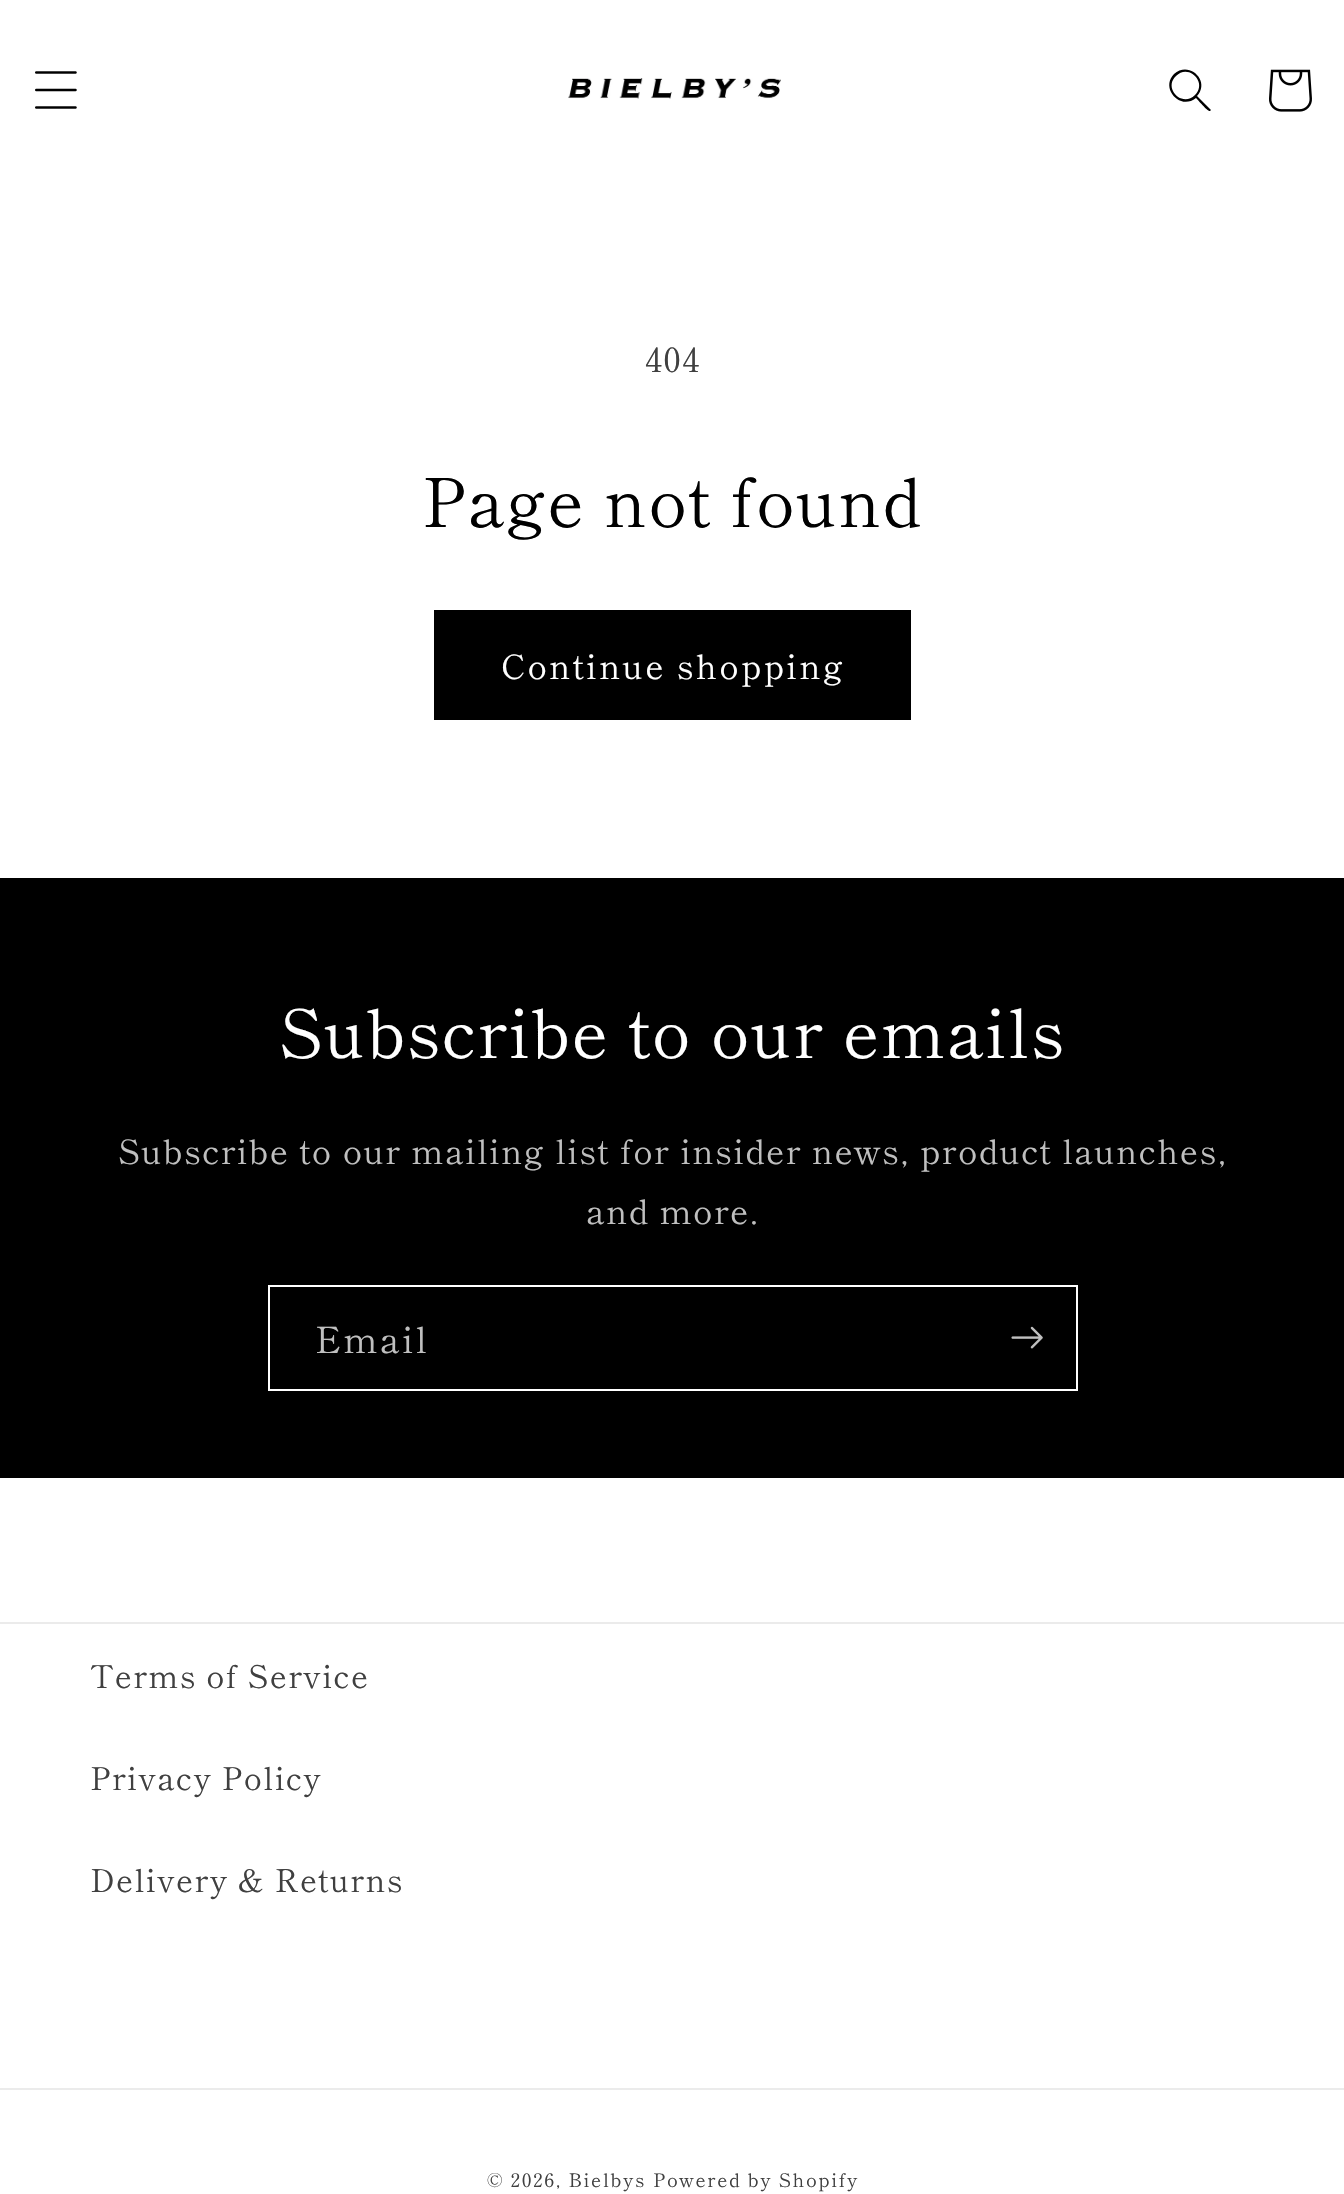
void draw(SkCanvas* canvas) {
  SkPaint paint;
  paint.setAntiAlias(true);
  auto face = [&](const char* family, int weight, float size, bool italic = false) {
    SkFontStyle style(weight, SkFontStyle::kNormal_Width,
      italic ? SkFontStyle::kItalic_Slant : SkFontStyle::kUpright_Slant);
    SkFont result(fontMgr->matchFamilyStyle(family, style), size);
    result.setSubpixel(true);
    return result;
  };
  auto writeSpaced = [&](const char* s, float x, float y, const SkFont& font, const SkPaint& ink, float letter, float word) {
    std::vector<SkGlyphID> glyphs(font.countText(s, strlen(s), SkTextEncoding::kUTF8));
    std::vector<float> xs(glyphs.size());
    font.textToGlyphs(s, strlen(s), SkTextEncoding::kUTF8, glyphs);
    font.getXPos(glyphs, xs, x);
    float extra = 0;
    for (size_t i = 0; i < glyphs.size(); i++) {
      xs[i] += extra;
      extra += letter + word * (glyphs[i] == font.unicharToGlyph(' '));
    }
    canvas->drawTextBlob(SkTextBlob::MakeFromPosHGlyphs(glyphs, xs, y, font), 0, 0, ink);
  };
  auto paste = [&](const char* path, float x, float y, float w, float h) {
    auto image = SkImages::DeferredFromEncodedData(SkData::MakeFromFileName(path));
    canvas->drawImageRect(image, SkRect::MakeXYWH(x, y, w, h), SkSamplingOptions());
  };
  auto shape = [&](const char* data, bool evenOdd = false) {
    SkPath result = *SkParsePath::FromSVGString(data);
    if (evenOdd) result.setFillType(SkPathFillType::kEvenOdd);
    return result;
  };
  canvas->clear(0xffffffff);
  paste("img/1.png", 35, 71, 42, 38);
  paste("img/2.png", 568, 78, 213, 21);
  paint.setColor(0xff000000);
  canvas->drawPath(shape("M1195 95C1182 108 1163 88 1176 76C1188 63 1208 82 1195 95ZM1196 98C1180 111 1160 88 1174 74C1189 60 1211 81 1197 96L1211 110L1210 111C1208 112 1198 100 1196 98Z", true), paint);
  paste("img/3.png", 1269, 69, 43, 43);
  canvas->drawRect(SkRect::MakeXYWH(434, 610, 477, 110), paint);
  canvas->drawRect(SkRect::MakeXYWH(0, 878, 1344, 600), paint);
  paint.setStroke(true);
  paint.setStrokeWidth(2);
  paint.setColor(0xffffffff);
  canvas->drawRect(SkRect::MakeXYWH(269, 1286, 808, 104), paint);
  paste("img/4.png", 1011, 1326, 32, 23);
  paint.setStroke(false);
  paint.setColor(0xffebebeb);
  canvas->drawRect(SkRect::MakeXYWH(0, 1622, 1344, 2), paint);
  canvas->drawRect(SkRect::MakeXYWH(0, 2088, 1344, 2), paint);
  auto f0 = face("Shippori Mincho", 400, 33.75f);
  paint.setColor(0xff404040);
  writeSpaced("404", 645, 372, f0, paint, 1.35f, 0);
  auto f1 = face("Shippori Mincho", 400, 67.5f);
  paint.setColor(0xff000000);
  writeSpaced("Page not found", 422, 527, f1, paint, 1.35f, 0);
  paint.setColor(0xffffffff);
  writeSpaced("Continue shopping", 501, 679, f0, paint, 2.25f, 0);
  writeSpaced("Subscribe to our emails", 279, 1058, f1, paint, 1.35f, 0);
  paint.setColor(0xffbfbfbf);
  writeSpaced("Subscribe to our mailing list for insider news, product launches,", 118, 1164, f0, paint, 1.35f, 0);
  writeSpaced("and more.", 586, 1224, f0, paint, 1.35f, 0);
  auto f2 = face("Shippori Mincho", 400, 36);
  writeSpaced("Email", 315, 1353, f2, paint, 2.25f, 0);
  auto f3 = face("Shippori Mincho", 400, 31.5f);
  paint.setColor(0xff404040);
  {
    const struct { const char* s; float x, y; } items[] = {
      {"Terms of Service", 90, 1688},
      {"Privacy Policy", 90, 1790},
      {"Delivery & Returns", 90, 1892},
    };
    for (auto [s, x, y] : items) {
      writeSpaced(s, x, y, f3, paint, 1.35f, 0);
    }
  }
  auto f4 = face("Shippori Mincho", 400, 18.75f);
  writeSpaced("© 2026, Bielbys", 487, 2187, f4, paint, 1.6f, 0);
  writeSpaced("Powered by Shopify", 653, 2187, f4, paint, 1.6f, 0);
}
